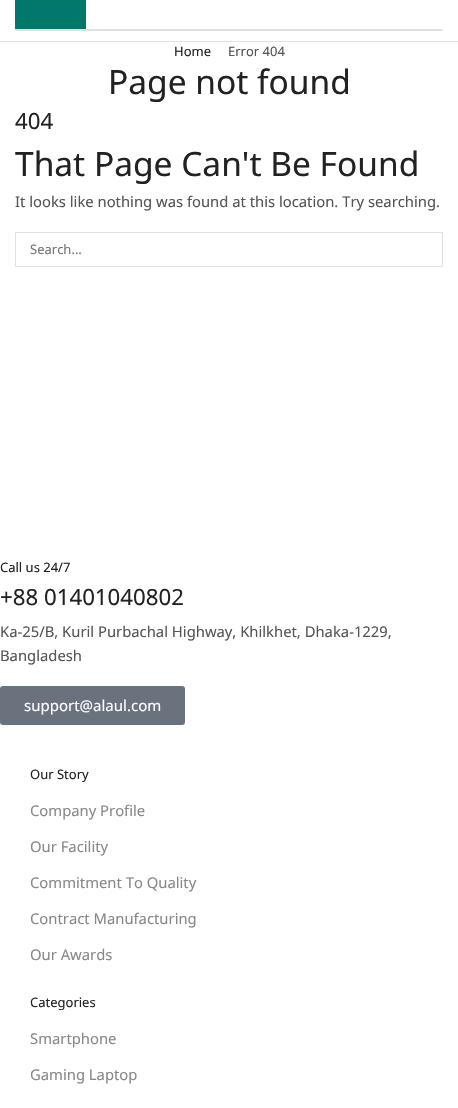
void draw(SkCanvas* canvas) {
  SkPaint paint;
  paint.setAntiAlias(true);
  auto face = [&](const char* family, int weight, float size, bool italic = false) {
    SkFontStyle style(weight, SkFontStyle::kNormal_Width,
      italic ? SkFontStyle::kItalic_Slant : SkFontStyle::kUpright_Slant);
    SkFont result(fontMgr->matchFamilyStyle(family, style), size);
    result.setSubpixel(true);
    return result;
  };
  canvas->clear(0xffffffff);
  paint.setColor(0xffe1e1e1);
  canvas->drawRect(SkRect::MakeXYWH(0, 41, 458, 1), paint);
  paint.setColor(0xff00796b);
  canvas->drawRect(SkRect::MakeXYWH(15, 0, 71, 29), paint);
  paint.setColor(0xffe1e1e1);
  canvas->drawRoundRect(SkRect::MakeXYWH(15, 29, 428, 2), 1, 1, paint);
  paint.setStroke(true);
  paint.setStrokeWidth(1);
  canvas->drawRect(SkRect::MakeXYWH(15.5f, 232.5f, 427, 34), paint);
  paint.setStroke(false);
  paint.setColor(0xff69727d);
  canvas->drawRoundRect(SkRect::MakeXYWH(0, 686, 185, 39), 3, 3, paint);
  auto f0 = face("Noto Sans", 400, 13);
  paint.setColor(0xff222222);
  canvas->drawString("Home", 174, 56, f0, paint);
  paint.setColor(0xff555555);
  canvas->drawString("Error 404", 228, 56, f0, paint);
  auto f1 = face("Noto Sans", 400, 33.5f);
  paint.setColor(0xff222222);
  canvas->drawString("Page not found", 108, 94, f1, paint);
  auto f2 = face("Noto Sans", 400, 22.25f);
  canvas->drawString("404", 15, 129, f2, paint);
  canvas->drawString("That Page Can't Be Found", 15, 176, f1, paint);
  auto f3 = face("Noto Sans", 400, 14.8f);
  paint.setColor(0xff555555);
  canvas->drawString("It looks like nothing was found at this location. Try searching.", 15, 207, f3, paint);
  paint.setColor(0xff757575);
  canvas->drawString("Search...", 30, 254, f0, paint);
  paint.setColor(0xff222222);
  canvas->drawString("Call us 24/7", 0, 572, f0, paint);
  canvas->drawString("+88 01401040802", 0, 605, f2, paint);
  paint.setColor(0xff555555);
  canvas->drawString("Ka-25/B, Kuril Purbachal Highway, Khilkhet, Dhaka-1229,", 0, 637, f3, paint);
  canvas->drawString("Bangladesh", 0, 661, f3, paint);
  auto f4 = face("Noto Sans", 400, 15);
  paint.setColor(0xffffffff);
  canvas->drawString("support@alaul.com", 24, 711, f4, paint);
  paint.setColor(0xff222222);
  canvas->drawString("Our Story", 30, 779, f0, paint);
  paint.setColor(0xff888888);
  {
    const struct { const char* s; float x, y; } items[] = {
      {"Company Profile", 30, 816},
      {"Our Facility", 30, 852},
      {"Commitment To Quality", 30, 888},
      {"Contract Manufacturing", 30, 924},
      {"Our Awards", 30, 960},
    };
    for (auto [s, x, y] : items) {
      canvas->drawString(s, x, y, f3, paint);
    }
  }
  paint.setColor(0xff222222);
  canvas->drawString("Categories", 30, 1007, f0, paint);
  paint.setColor(0xff888888);
  canvas->drawString("Smartphone", 30, 1044, f3, paint);
  canvas->drawString("Gaming Laptop", 30, 1080, f3, paint);
}
